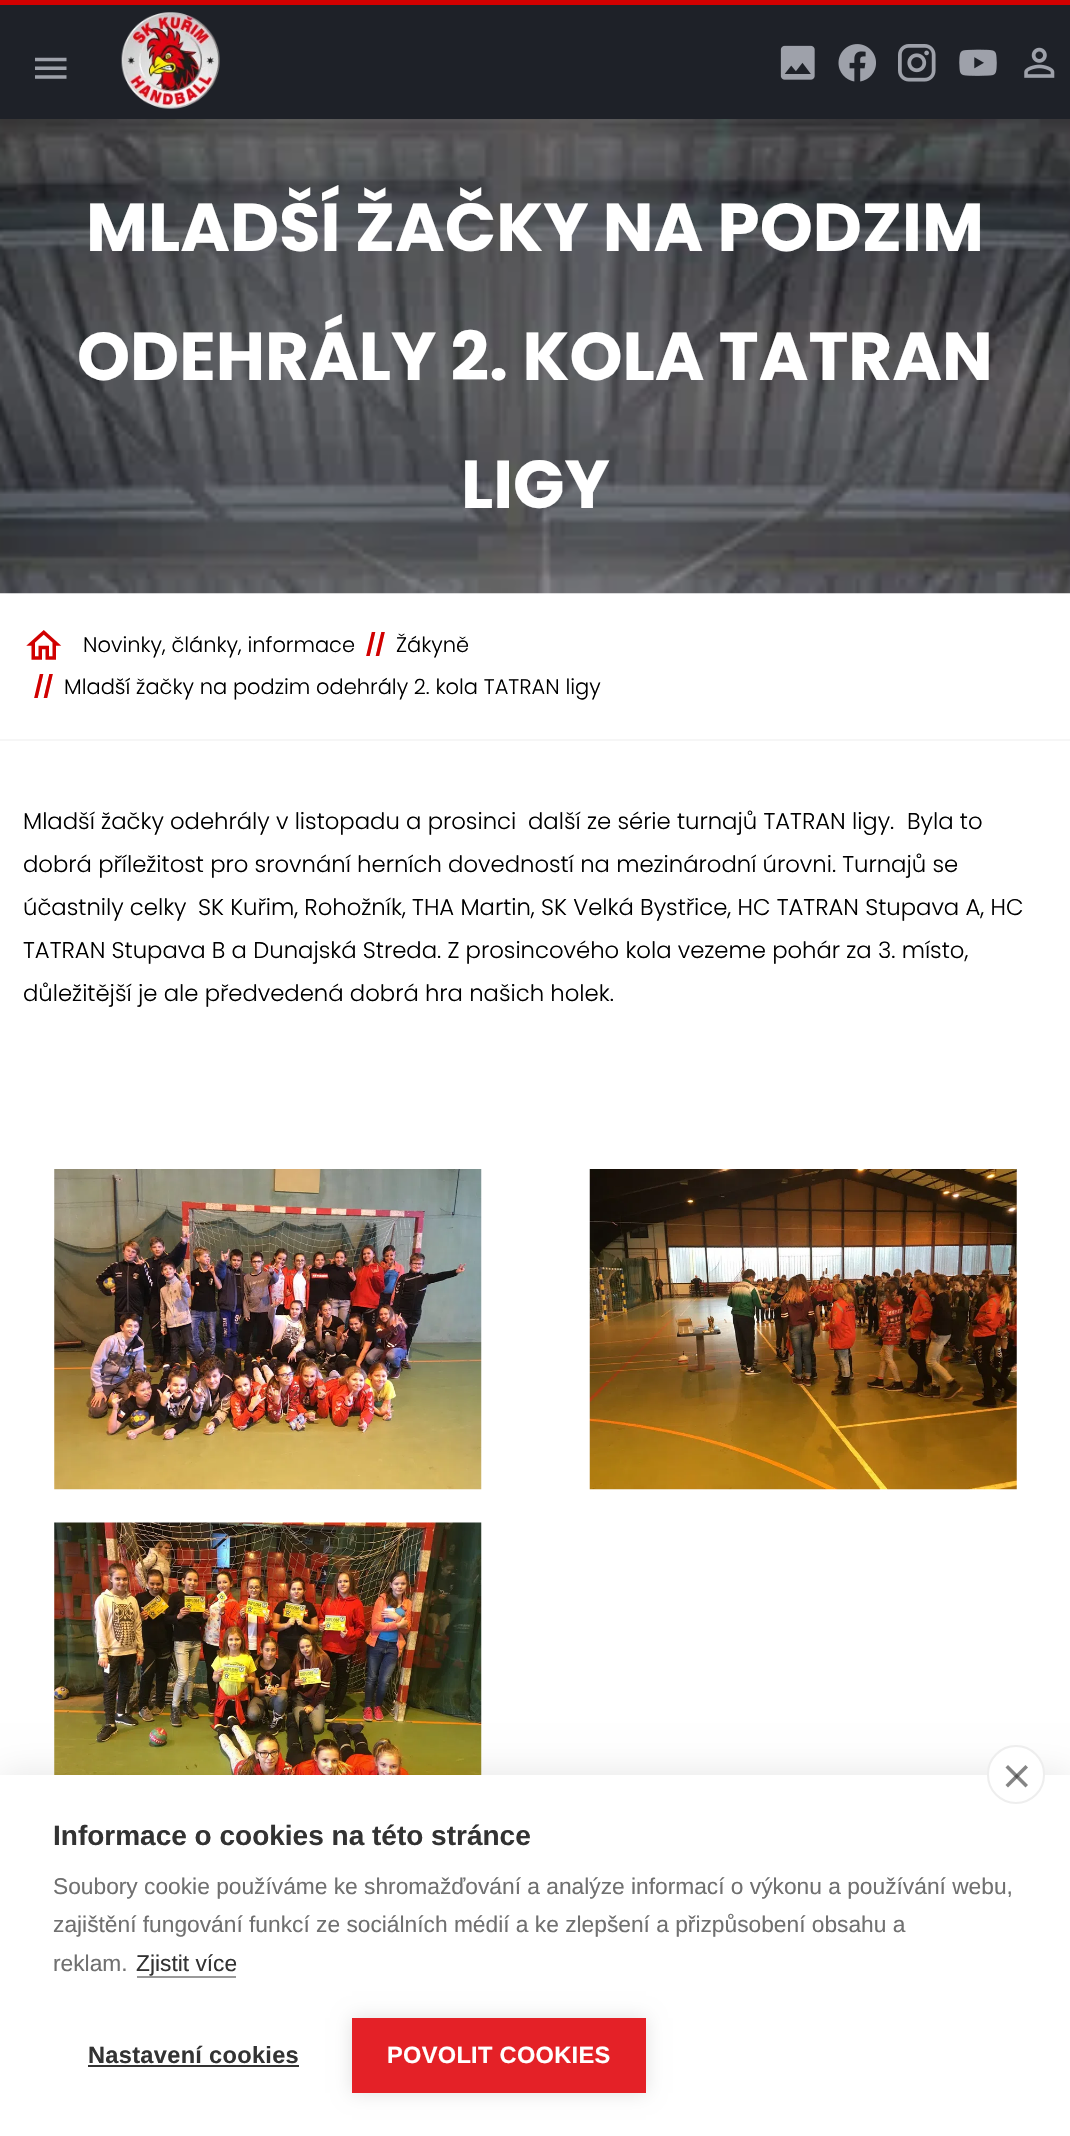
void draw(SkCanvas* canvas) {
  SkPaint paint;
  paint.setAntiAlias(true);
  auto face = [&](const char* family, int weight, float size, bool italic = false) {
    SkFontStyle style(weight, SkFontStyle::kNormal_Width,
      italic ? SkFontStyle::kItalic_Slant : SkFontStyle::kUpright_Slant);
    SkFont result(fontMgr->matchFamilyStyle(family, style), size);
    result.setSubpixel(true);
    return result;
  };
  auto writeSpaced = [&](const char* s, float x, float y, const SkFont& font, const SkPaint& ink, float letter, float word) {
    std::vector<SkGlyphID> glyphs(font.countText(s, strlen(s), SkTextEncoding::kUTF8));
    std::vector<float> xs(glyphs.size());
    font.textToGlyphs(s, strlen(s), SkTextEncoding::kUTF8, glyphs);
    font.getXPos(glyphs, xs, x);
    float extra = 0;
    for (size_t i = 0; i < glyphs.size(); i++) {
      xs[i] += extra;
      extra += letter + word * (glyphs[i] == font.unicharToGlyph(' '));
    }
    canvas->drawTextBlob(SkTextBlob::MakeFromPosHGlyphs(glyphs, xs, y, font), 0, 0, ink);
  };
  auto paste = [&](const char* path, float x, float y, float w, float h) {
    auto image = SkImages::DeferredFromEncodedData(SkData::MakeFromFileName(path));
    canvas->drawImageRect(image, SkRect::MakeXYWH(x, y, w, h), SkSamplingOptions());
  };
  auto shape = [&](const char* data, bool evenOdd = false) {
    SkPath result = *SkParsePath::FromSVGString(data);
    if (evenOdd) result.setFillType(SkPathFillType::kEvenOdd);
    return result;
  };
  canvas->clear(0xffffffff);
  paint.setColor(0xff1e2128);
  canvas->drawRect(SkRect::MakeXYWH(0, 5, 1070, 114), paint);
  paint.setColor(0xffd10000);
  canvas->drawRect(SkRect::MakeXYWH(0, 0, 1070, 5), paint);
  paste("img/1.png", 35, 57, 32, 22);
  paste("img/2.png", 121, 12, 99, 97);
  paste("img/3.png", 780, 45, 35, 35);
  paste("img/4.png", 838, 44, 38, 38);
  paste("img/5.png", 898, 44, 38, 38);
  paste("img/6.png", 959, 49, 38, 27);
  paste("img/7.png", 1024, 47, 31, 31);
  paste("img/8.png", 0, 119, 1070, 475);
  paint.setColor(0xfff6f6f6);
  canvas->drawRect(SkRect::MakeXYWH(0, 739, 1070, 2), paint);
  paste("img/9.png", 26, 630, 36, 30);
  paste("img/10.png", 54, 1169, 428, 321);
  paste("img/11.png", 589, 1169, 428, 321);
  paste("img/12.png", 54, 1522, 428, 253);
  paint.setColor(0x1a000000);
  paint.setMaskFilter(SkMaskFilter::MakeBlur(kNormal_SkBlurStyle, 17.5f));
  canvas->drawRect(SkRect::MakeXYWH(0, 1775, 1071, 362), paint);
  paint.setMaskFilter(nullptr);
  paint.setColor(0xffffffff);
  canvas->drawRect(SkRect::MakeXYWH(0, 1775, 1070, 361), paint);
  canvas->drawRoundRect(SkRect::MakeXYWH(988, 1746, 56, 57), 28, 28, paint);
  paint.setStroke(true);
  paint.setStrokeWidth(2);
  paint.setColor(0xffeeeeee);
  canvas->drawRoundRect(SkRect::MakeXYWH(988, 1746, 56, 57), 28, 28, paint);
  paint.setStroke(false);
  paint.setColor(0xff858585);
  canvas->drawPath(shape("M1005.5 1785L1025.5 1765L1028 1767.5L1008 1787.5Z"), paint);
  paint.setColor(0x99333333);
  canvas->drawPath(shape("M1008 1765L1028 1785L1025.5 1787.5L1005.5 1767.5Z"), paint);
  paint.setColor(0xff999999);
  canvas->drawRect(SkRect::MakeXYWH(137, 1976, 99, 2), paint);
  paint.setColor(0xff333333);
  canvas->drawRect(SkRect::MakeXYWH(88, 2065, 211, 2), paint);
  paint.setColor(0x1f000000);
  paint.setMaskFilter(SkMaskFilter::MakeBlur(kNormal_SkBlurStyle, 9));
  canvas->drawRect(SkRect::MakeXYWH(352, 2018, 294, 75), paint);
  paint.setMaskFilter(nullptr);
  paint.setColor(0xffe42127);
  canvas->drawRect(SkRect::MakeXYWH(352, 2018, 294, 75), paint);
  auto f0 = face("Poppins", 700, 67.5f);
  paint.setColor(0xffffffff);
  {
    const struct { const char* s; float x, y; } items[] = {
      {"MLADŠÍ ŽAČKY NA PODZIM", 86, 251},
      {"ODEHRÁLY 2. KOLA TATRAN", 77, 380},
      {"LIGY", 461, 508},
    };
    for (auto [s, x, y] : items) {
      canvas->drawString(s, x, y, f0, paint);
    }
  }
  auto f1 = face("Poppins", 300, 21);
  paint.setColor(0xff000000);
  canvas->drawString("Novinky, články, informace", 83, 652, f1, paint);
  auto f2 = face("Poppins", 700, 21);
  paint.setColor(0xffd10000);
  canvas->drawString("//", 366, 652, f2, paint);
  paint.setColor(0xff000000);
  canvas->drawString("Žákyně", 396, 652, f1, paint);
  paint.setColor(0xffd10000);
  canvas->drawString("//", 34, 694, f2, paint);
  paint.setColor(0xff000000);
  canvas->drawString("Mladší žačky na podzim odehrály 2. kola TATRAN ligy", 64, 694, f1, paint);
  auto f3 = face("Poppins", 300, 22.75f);
  {
    const struct { const char* s; float x, y; } items[] = {
      {"Mladší žačky odehrály v listopadu a prosinci", 23, 829},
      {"další ze série turnajů TATRAN ligy.", 528, 829},
      {"Byla to", 907, 829},
      {"dobrá příležitost pro srovnání herních dovedností na mezinárodní úrovni. Turnajů se", 23, 872},
      {"účastnily celky", 23, 915},
      {"SK Kuřim, Rohožník, THA Martin, SK Velká Bystřice, HC TATRAN Stupava A, HC", 198, 915},
      {"TATRAN Stupava B a Dunajská Streda. Z prosincového kola vezeme pohár za 3. místo,", 23, 958},
      {"důležitější je ale předvedená dobrá hra našich holek.", 23, 1001},
    };
    for (auto [s, x, y] : items) {
      canvas->drawString(s, x, y, f3, paint);
    }
  }
  auto f4 = face("Liberation Sans", 700, 28);
  paint.setColor(0xff333333);
  canvas->drawString("Informace o cookies na této stránce", 53, 1845, f4, paint);
  auto f5 = face("Liberation Sans", 400, 22.75f);
  paint.setColor(0xff707070);
  {
    const struct { const char* s; float x, y; } items[] = {
      {"Soubory cookie používáme ke shromažďování a analýze informací o výkonu a používání webu,", 53, 1894},
      {"zajištění fungování funkcí ze sociálních médií a ke zlepšení a přizpůsobení obsahu a", 53, 1932},
      {"reklam.", 53, 1971},
    };
    for (auto [s, x, y] : items) {
      canvas->drawString(s, x, y, f5, paint);
    }
  }
  paint.setColor(0xff333333);
  canvas->drawString("Zjistit více", 136, 1971, f5, paint);
  auto f6 = face("Liberation Sans", 700, 23.6f);
  writeSpaced("Nastavení cookies", 88, 2063, f6, paint, 0.3f, 0);
  paint.setColor(0xffffffff);
  writeSpaced("POVOLIT COOKIES", 387, 2063, f6, paint, 0.3f, 0);
}
